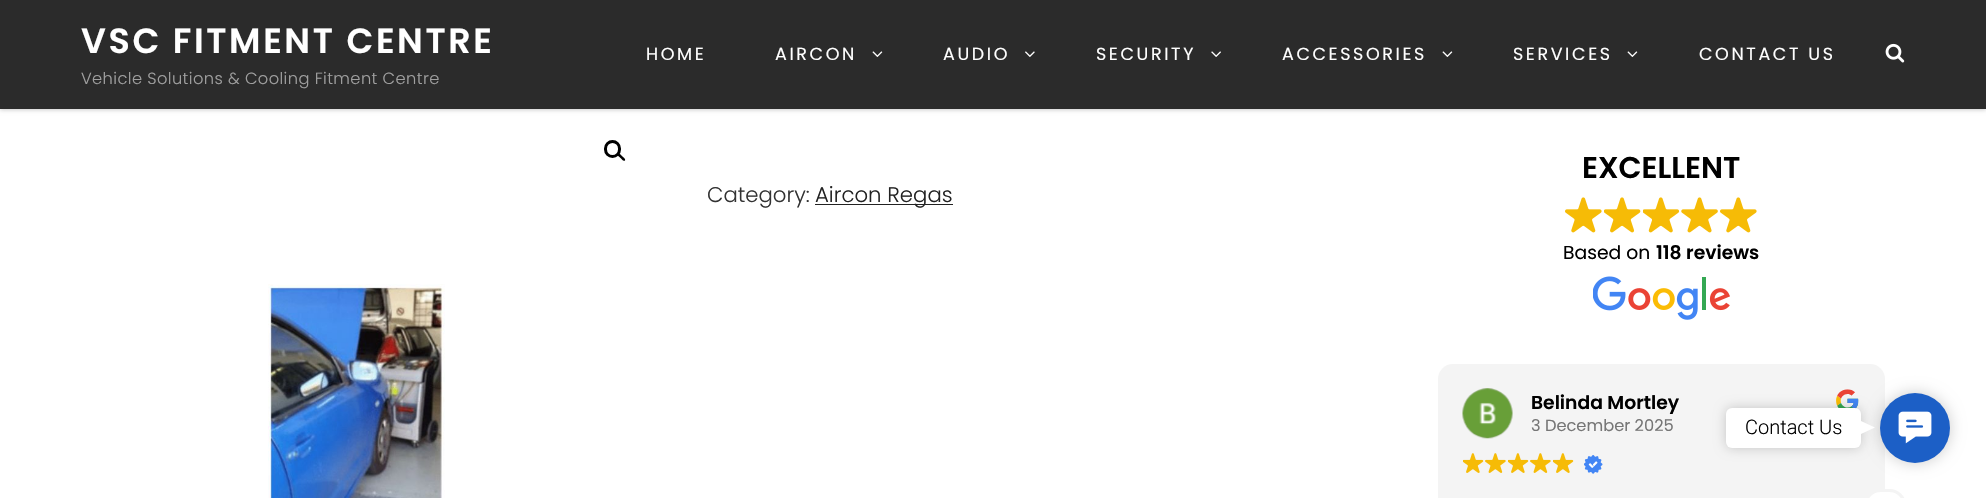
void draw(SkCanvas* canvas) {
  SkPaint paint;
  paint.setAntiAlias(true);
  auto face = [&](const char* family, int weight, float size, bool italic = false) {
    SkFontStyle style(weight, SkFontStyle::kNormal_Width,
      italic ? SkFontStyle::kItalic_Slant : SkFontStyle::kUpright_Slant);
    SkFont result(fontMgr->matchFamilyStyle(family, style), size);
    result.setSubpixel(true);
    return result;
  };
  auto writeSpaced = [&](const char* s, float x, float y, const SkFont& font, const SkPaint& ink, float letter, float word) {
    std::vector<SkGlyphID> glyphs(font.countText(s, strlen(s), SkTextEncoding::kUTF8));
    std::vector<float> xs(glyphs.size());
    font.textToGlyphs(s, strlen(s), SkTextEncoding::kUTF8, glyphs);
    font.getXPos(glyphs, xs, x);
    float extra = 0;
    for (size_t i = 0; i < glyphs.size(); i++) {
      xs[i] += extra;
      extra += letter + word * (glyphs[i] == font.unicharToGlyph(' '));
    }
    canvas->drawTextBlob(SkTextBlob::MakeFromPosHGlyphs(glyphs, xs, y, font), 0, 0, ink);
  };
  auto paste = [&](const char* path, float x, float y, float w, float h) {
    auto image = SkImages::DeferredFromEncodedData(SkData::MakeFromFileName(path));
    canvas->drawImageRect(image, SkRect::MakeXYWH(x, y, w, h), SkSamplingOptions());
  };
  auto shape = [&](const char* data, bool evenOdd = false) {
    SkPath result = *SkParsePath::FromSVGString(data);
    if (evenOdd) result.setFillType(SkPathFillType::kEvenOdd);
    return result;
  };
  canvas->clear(0xffffffff);
  paint.setColor(0x33000000);
  paint.setMaskFilter(SkMaskFilter::MakeBlur(kNormal_SkBlurStyle, 2));
  canvas->drawRect(SkRect::MakeXYWH(0, 1, 1986, 109), paint);
  paint.setMaskFilter(nullptr);
  paint.setColor(0xff2b2b2b);
  canvas->drawRect(SkRect::MakeXYWH(0, 0, 1986, 109), paint);
  paste("img/1.png", 872, 51, 11, 6);
  paste("img/2.png", 1025, 51, 10, 6);
  paste("img/3.png", 1211, 51, 10, 6);
  paste("img/1.png", 1442, 51, 11, 6);
  paste("img/1.png", 1627, 51, 11, 6);
  paste("img/4.png", 1885, 43, 20, 20);
  paint.setStroke(true);
  paint.setStrokeWidth(3);
  paint.setColor(0xff000000);
  canvas->drawRoundRect(SkRect::MakeXYWH(605.5f, 141.5f, 14, 15), 7, 7, paint);
  paint.setStroke(false);
  canvas->drawPath(shape("M617.5 153.5C619 152 621.5 155.5 622 156C623 157 626 159 625 160.5C623.5 162 621 158.5 620.5 158C619.5 157 616.5 155 617.5 153.5Z"), paint);
  paste("img/5.png", 268, 284, 177, 214);
  paint.setColor(0xff222222);
  canvas->drawRect(SkRect::MakeXYWH(815, 204, 138, 1), paint);
  paste("img/6.png", 1565, 197, 37, 36);
  paste("img/7.png", 1604, 197, 37, 36);
  paste("img/8.png", 1643, 197, 37, 36);
  paste("img/9.png", 1681, 197, 37, 36);
  paste("img/6.png", 1720, 197, 37, 36);
  paste("img/10.png", 1593, 276, 137, 44);
  paint.setColor(0xfff4f4f4);
  canvas->drawRoundRect(SkRect::MakeXYWH(1438, 364, 447, 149), 15, 15, paint);
  paste("img/11.png", 1462, 388, 51, 51);
  paste("img/12.png", 1836, 389, 23, 20);
  paste("img/13.png", 1463, 453, 21, 20);
  paste("img/14.png", 1485, 453, 21, 20);
  paste("img/13.png", 1508, 453, 21, 20);
  paste("img/14.png", 1530, 453, 21, 20);
  paste("img/13.png", 1553, 453, 21, 20);
  paste("img/15.png", 1584, 455, 19, 19);
  paint.setColor(0xffffffff);
  canvas->drawRoundRect(SkRect::MakeXYWH(1866, 491, 38, 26), 19, 19, paint);
  paint.setStroke(true);
  paint.setColor(0xfff4f4f4);
  canvas->drawRoundRect(SkRect::MakeXYWH(1865.5f, 490.5f, 39, 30), 19.5f, 19.5f, paint);
  paint.setStroke(false);
  paint.setColor(0x33000000);
  paint.setMaskFilter(SkMaskFilter::MakeBlur(kNormal_SkBlurStyle, 6));
  canvas->drawRoundRect(SkRect::MakeXYWH(1726, 408, 135, 40), 6, 6, paint);
  paint.setMaskFilter(nullptr);
  paint.setMaskFilter(SkMaskFilter::MakeBlur(kNormal_SkBlurStyle, 7.5f));
  canvas->drawRoundRect(SkRect::MakeXYWH(1880, 393, 70, 70), 35, 35, paint);
  paint.setMaskFilter(nullptr);
  paint.setColor(0xffffffff);
  canvas->drawRoundRect(SkRect::MakeXYWH(1726, 408, 135, 40), 6, 6, paint);
  canvas->drawPath(shape("M1861 434V421L1875 427.5Z"), paint);
  paint.setColor(0xff1c5fc6);
  canvas->drawCircle(1915, 428, 35, paint);
  paste("img/16.png", 1898, 411, 34, 33);
  auto f0 = face("Poppins", 600, 35);
  paint.setColor(0xffffffff);
  writeSpaced("VSC FITMENT CENTRE", 81, 53, f0, paint, 2.6f, 0);
  auto f1 = face("Poppins", 300, 16.25f);
  paint.setColor(0xffa0a0a0);
  writeSpaced("Vehicle Solutions & Cooling Fitment Centre", 81, 84, f1, paint, 0.4f, 0);
  auto f2 = face("Poppins", 400, 17.5f);
  paint.setColor(0xffffffff);
  {
    const struct { const char* s; float x, y; } items[] = {
      {"HOME", 646, 60},
      {"AIRCON", 775, 60},
      {"AUDIO", 943, 60},
      {"SECURITY", 1096, 60},
      {"ACCESSORIES", 1282, 60},
      {"SERVICES", 1513, 60},
      {"CONTACT US", 1699, 60},
    };
    for (auto [s, x, y] : items) {
      writeSpaced(s, x, y, f2, paint, 2.6f, 0);
    }
  }
  auto f3 = face("Poppins", 300, 21.25f);
  paint.setColor(0xff333333);
  canvas->drawString("Category:", 707, 202, f3, paint);
  paint.setColor(0xff222222);
  canvas->drawString("Aircon Regas", 815, 202, f3, paint);
  auto f4 = face("Poppins", 600, 30);
  paint.setColor(0xff000000);
  canvas->drawString("EXCELLENT", 1582, 178, f4, paint);
  auto f5 = face("Poppins", 400, 18.75f);
  canvas->drawString("Based on", 1563, 259, f5, paint);
  auto f6 = face("Poppins", 600, 18.75f);
  canvas->drawString("118 reviews", 1656, 259, f6, paint);
  canvas->drawString("Belinda Mortley", 1531, 409, f6, paint);
  auto f7 = face("Poppins", 400, 16.25f);
  paint.setColor(0xff767676);
  canvas->drawString("3 December 2025", 1531, 431, f7, paint);
  auto f8 = face("Roboto", 300, 20);
  paint.setColor(0xff000000);
  canvas->drawString("Contact Us", 1745, 434, f8, paint);
}
